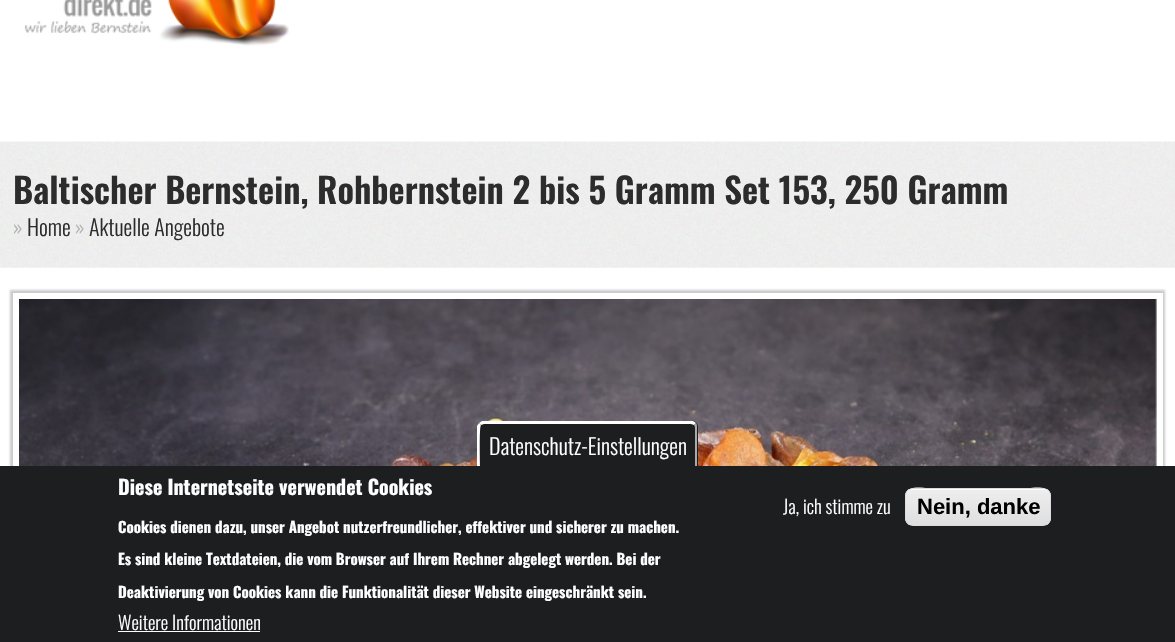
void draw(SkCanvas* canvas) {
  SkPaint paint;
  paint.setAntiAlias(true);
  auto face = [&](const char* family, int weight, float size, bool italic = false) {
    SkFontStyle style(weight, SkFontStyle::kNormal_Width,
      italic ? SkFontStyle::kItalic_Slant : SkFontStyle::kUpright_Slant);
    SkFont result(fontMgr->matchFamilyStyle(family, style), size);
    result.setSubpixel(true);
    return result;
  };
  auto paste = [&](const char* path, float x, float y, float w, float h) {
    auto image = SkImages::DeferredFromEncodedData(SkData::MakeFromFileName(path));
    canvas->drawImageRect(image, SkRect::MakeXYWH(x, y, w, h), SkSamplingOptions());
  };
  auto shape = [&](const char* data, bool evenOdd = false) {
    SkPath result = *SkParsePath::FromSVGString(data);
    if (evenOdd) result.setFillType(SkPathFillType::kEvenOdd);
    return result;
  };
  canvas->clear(0xffffffff);
  paste("img/1.png", 24, 0, 265, 46);
  paste("img/2.png", 0, 141, 1175, 127);
  paint.setColor(0x33000000);
  paint.setMaskFilter(SkMaskFilter::MakeBlur(kNormal_SkBlurStyle, 1));
  canvas->drawRect(SkRect::MakeXYWH(10, 290, 1155, 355), paint);
  paint.setMaskFilter(nullptr);
  paint.setColor(0xffffffff);
  canvas->drawRect(SkRect::MakeXYWH(13, 293, 1150, 173), paint);
  paste("img/3.png", 19, 299, 1138, 167);
  paint.setColor(0xff1c1e20);
  canvas->drawRect(SkRect::MakeXYWH(0, 466, 1175, 176), paint);
  canvas->drawPath(shape("M484 421H692C695.5 421 698 423.5 698 427V466H478V427C478 423.5 480.5 421 484 421Z"), paint);
  paint.setColor(0xffffffff);
  canvas->drawPath(shape("M484 424L481 425L479 423L482 421H693L696 423L694 425L691 424Z"), paint);
  paint.setColor(0xffaaaaaa);
  canvas->drawPath(shape("M696 423L694 425C694 425 695 426 695 428V466H697V428C697 426 697 424 696 423Z"), paint);
  paint.setColor(0xffffffff);
  canvas->drawPath(shape("M477 426L479 423L481 425C479 427 480 461 480 466H477Z"), paint);
  canvas->drawRect(SkRect::MakeXYWH(118, 631, 142, 1), paint);
  canvas->save();
  canvas->clipPath(shape("M913 488H1043C1047.5 488 1051 491.5 1051 496V518C1051 522.5 1047.5 526 1043 526H913C908.5 526 905 522.5 905 518V496C905 491.5 908.5 488 913 488Z"), true);
  {
    const SkColor colors[] = {0xffededed, 0xffdfdfdf};
    const float stops[] = {0.05f, 1};
    const SkPoint ends[] = {{978, 489}, {978, 525}};
    paint.setShader(SkGradientShader::MakeLinear(ends, colors, stops, 2, SkTileMode::kClamp));
    paint.setAlpha(255);
  }
  canvas->drawRect(SkRect::MakeXYWH(905, 489, 146, 36), paint);
  canvas->restore();
  paint.setShader(nullptr);
  paint.setColor(0xffffffff);
  canvas->drawPath(shape("M912 490H1044C1047 490 1050 493 1050 496C1050 483 1027 489 1022 489H934C929 489 906 483 906 496C906 493 909 490 912 490Z"), paint);
  paint.setStroke(true);
  paint.setStrokeWidth(1);
  paint.setColor(0xffdcdcdc);
  canvas->drawRoundRect(SkRect::MakeXYWH(905.5f, 488.5f, 145, 37), 7.5f, 7.5f, paint);
  auto f0 = face("Oswald", 600, 35);
  paint.setStroke(false);
  paint.setColor(0xff2c2c2c);
  canvas->drawString("Baltischer Bernstein, Rohbernstein 2 bis 5 Gramm Set 153, 250 Gramm", 13, 204, f0, paint);
  auto f1 = face("Oswald", 300, 22);
  paint.setColor(0xffb3b3b3);
  canvas->drawString("»", 13, 236, f1, paint);
  paint.setColor(0xff2c2c2c);
  canvas->drawString("Home", 27, 236, f1, paint);
  paint.setColor(0xffb3b3b3);
  canvas->drawString("»", 75, 236, f1, paint);
  paint.setColor(0xff2c2c2c);
  canvas->drawString("Aktuelle Angebote", 89, 236, f1, paint);
  paint.setColor(0xffffffff);
  canvas->drawString("Datenschutz-Einstellungen", 489, 455, f1, paint);
  auto f2 = face("Oswald", 700, 20);
  canvas->drawString("Diese Internetseite verwendet Cookies", 118, 495, f2, paint);
  auto f3 = face("Oswald", 700, 15);
  {
    const struct { const char* s; float x, y; } items[] = {
      {"Cookies dienen dazu, unser Angebot nutzerfreundlicher, effektiver und sicherer zu machen.", 118, 533},
      {"Es sind kleine Textdateien, die vom Browser auf Ihrem Rechner abgelegt werden. Bei der", 118, 565},
      {"Deaktivierung von Cookies kann die Funktionalität dieser Website eingeschränkt sein.", 118, 598},
    };
    for (auto [s, x, y] : items) {
      canvas->drawString(s, x, y, f3, paint);
    }
  }
  auto f4 = face("Oswald", 300, 18.75f);
  canvas->drawString("Weitere Informationen", 118, 630, f4, paint);
  canvas->drawString("Ja, ich stimme zu", 783, 514, f4, paint);
  auto f5 = face("Liberation Sans", 700, 22);
  paint.setColor(0xff000000);
  canvas->drawString("Nein, danke", 917, 514, f5, paint);
}
